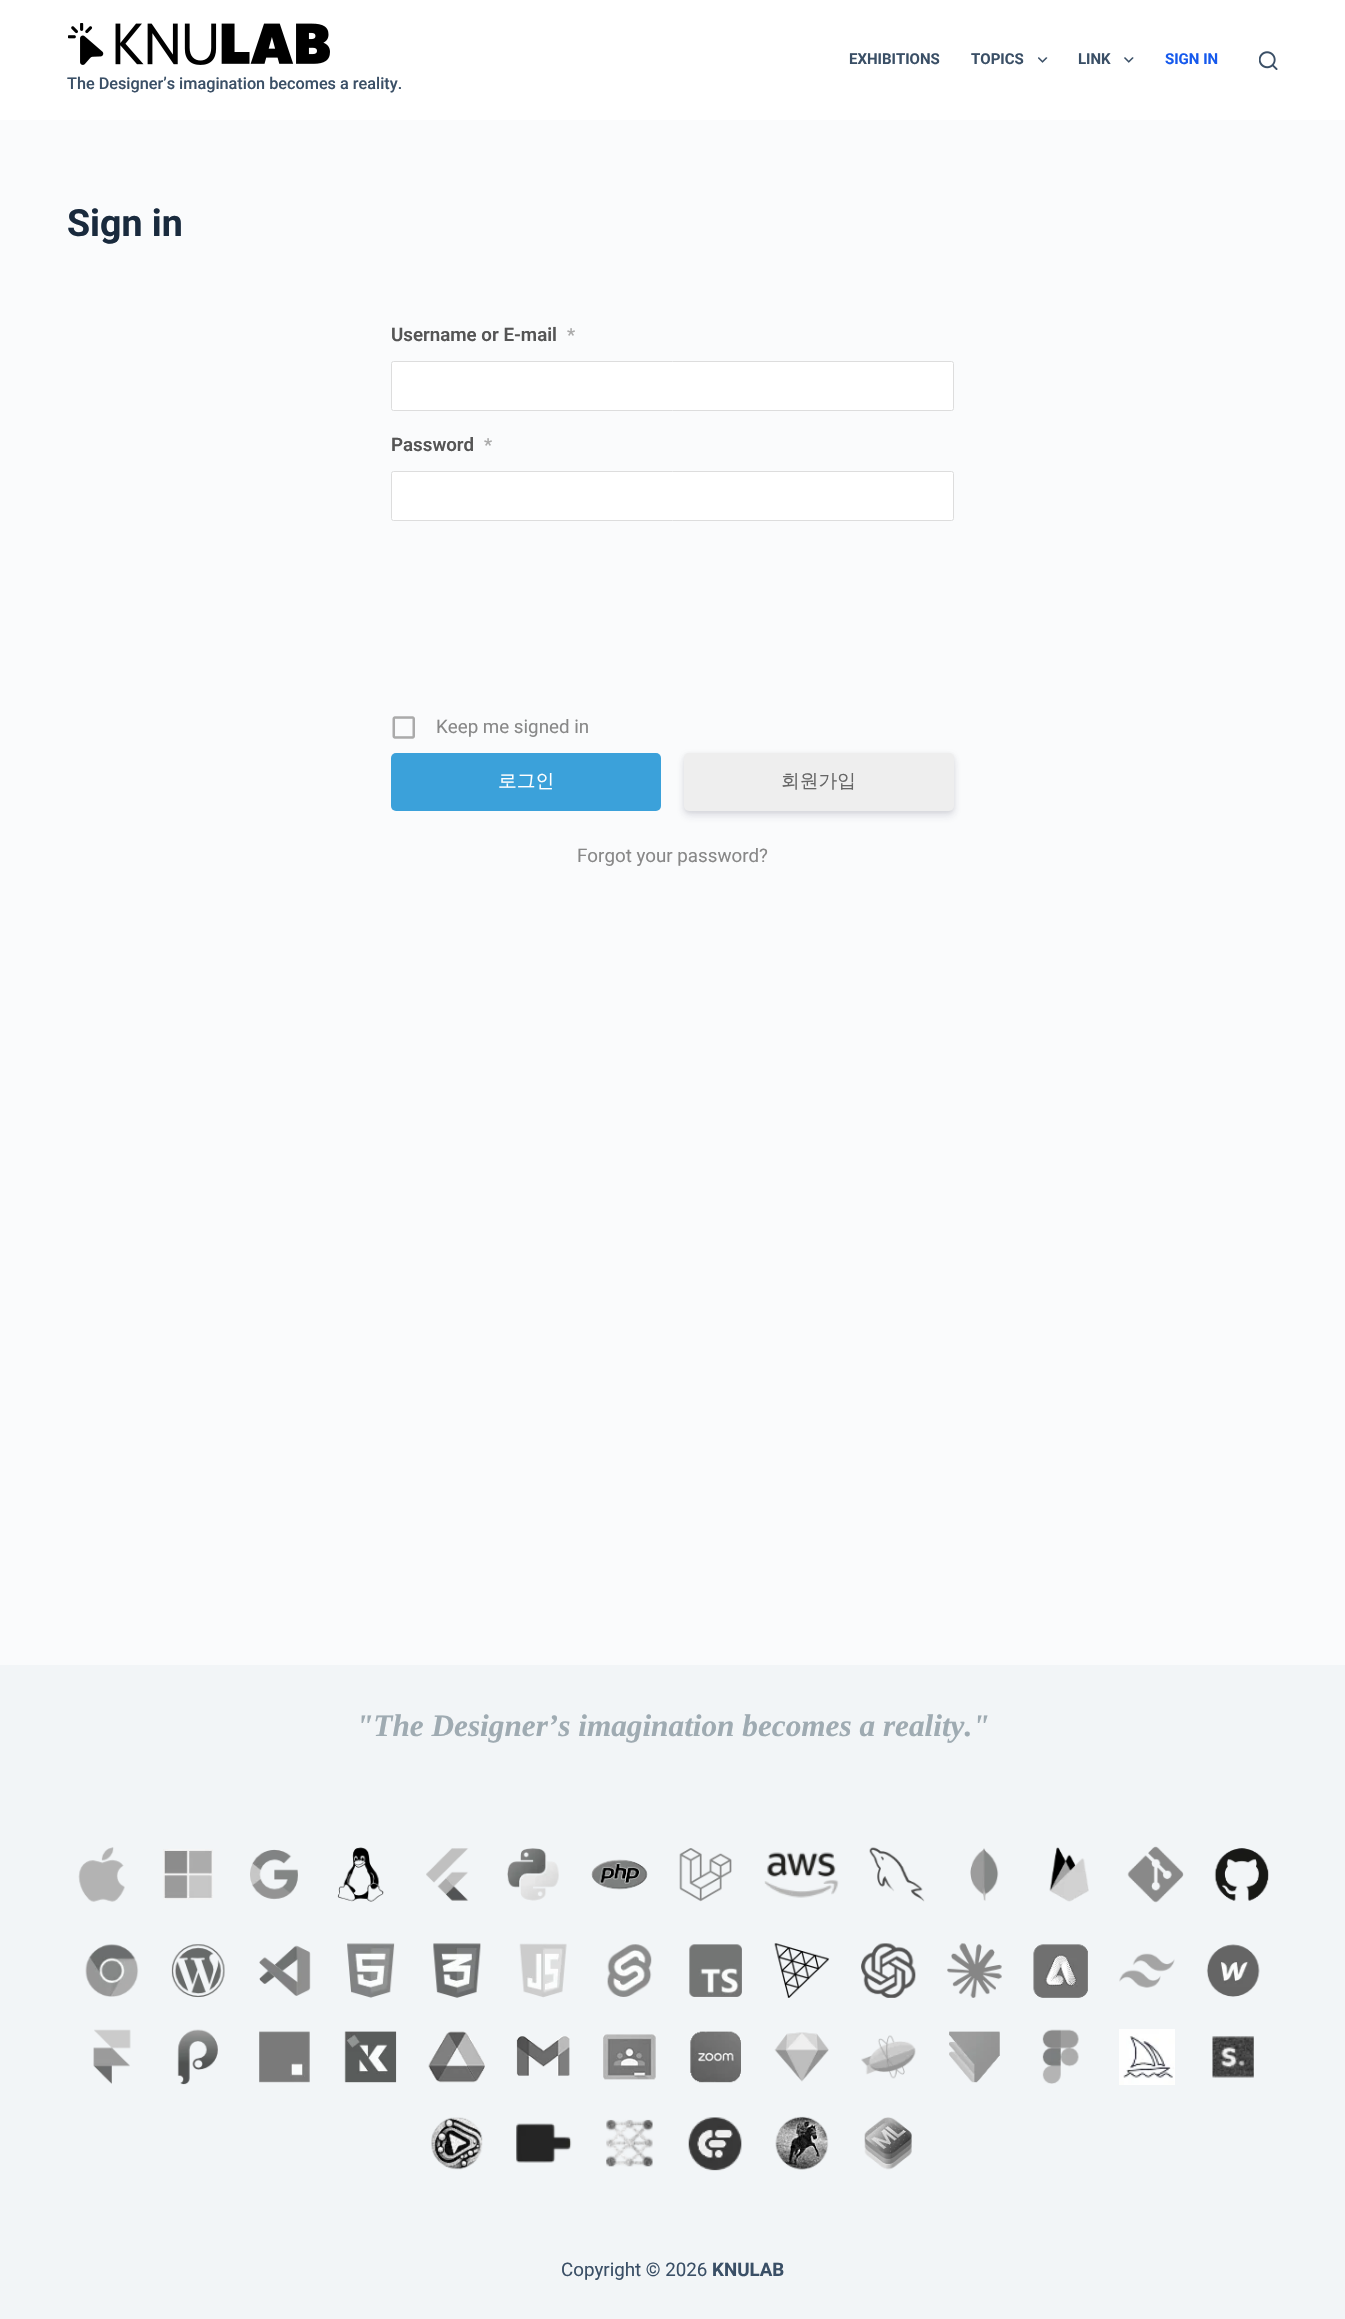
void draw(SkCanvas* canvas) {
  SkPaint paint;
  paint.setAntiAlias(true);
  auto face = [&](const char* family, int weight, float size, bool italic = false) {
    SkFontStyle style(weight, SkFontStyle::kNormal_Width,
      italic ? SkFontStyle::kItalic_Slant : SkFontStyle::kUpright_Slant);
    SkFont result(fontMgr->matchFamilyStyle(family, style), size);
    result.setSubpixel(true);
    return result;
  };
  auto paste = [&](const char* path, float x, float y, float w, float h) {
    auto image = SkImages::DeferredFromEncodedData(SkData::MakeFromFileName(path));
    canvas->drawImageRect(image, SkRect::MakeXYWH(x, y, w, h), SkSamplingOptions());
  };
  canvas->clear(0xfffafbfc);
  paint.setColor(0xffffffff);
  canvas->drawRect(SkRect::MakeXYWH(0, 0, 1345, 120), paint);
  paste("img/1.png", 1038, 57, 10, 6);
  paste("img/2.png", 1124, 57, 10, 6);
  paste("img/3.png", 1259, 51, 19, 19);
  paste("img/4.png", 68, 23, 262, 42);
  canvas->drawRoundRect(SkRect::MakeXYWH(391.5f, 361.5f, 562, 49), 2, 2, paint);
  paint.setStroke(true);
  paint.setStrokeWidth(1);
  paint.setColor(0xffdddddd);
  canvas->drawRoundRect(SkRect::MakeXYWH(391.5f, 361.5f, 562, 49), 2, 2, paint);
  paint.setStroke(false);
  paint.setColor(0xffffffff);
  canvas->drawRoundRect(SkRect::MakeXYWH(391.5f, 471.5f, 562, 49), 2, 2, paint);
  paint.setStroke(true);
  paint.setColor(0xffdddddd);
  canvas->drawRoundRect(SkRect::MakeXYWH(391.5f, 471.5f, 562, 49), 2, 2, paint);
  paste("img/5.png", 392, 716, 23, 23);
  paint.setStroke(false);
  paint.setColor(0xff3ba1da);
  canvas->drawRoundRect(SkRect::MakeXYWH(391, 753, 270, 58), 5, 5, paint);
  paint.setColor(0x14000000);
  paint.setMaskFilter(SkMaskFilter::MakeBlur(kNormal_SkBlurStyle, 2));
  canvas->drawRoundRect(SkRect::MakeXYWH(684, 754, 270, 59), 5, 5, paint);
  paint.setMaskFilter(nullptr);
  paint.setColor(0x1c32325d);
  paint.setMaskFilter(SkMaskFilter::MakeBlur(kNormal_SkBlurStyle, 4));
  canvas->drawRoundRect(SkRect::MakeXYWH(684, 758, 270, 58), 5, 5, paint);
  paint.setMaskFilter(nullptr);
  paint.setColor(0xffeeeeee);
  canvas->drawRoundRect(SkRect::MakeXYWH(684, 753, 270, 58), 5, 5, paint);
  paint.setColor(0xfff2f5f7);
  canvas->drawRect(SkRect::MakeXYWH(0, 1665, 1345, 654), paint);
  paste("img/6.png", 78, 1847, 47, 55);
  paste("img/7.png", 163, 1849, 50, 51);
  paste("img/8.png", 250, 1849, 48, 51);
  paste("img/9.png", 337, 1847, 47, 55);
  paste("img/10.png", 426, 1848, 43, 53);
  paste("img/11.png", 507, 1848, 52, 53);
  paste("img/12.png", 591, 1859, 57, 31);
  paste("img/13.png", 679, 1848, 53, 54);
  paste("img/14.png", 764, 1852, 75, 46);
  paste("img/15.png", 869, 1847, 56, 55);
  paste("img/16.png", 970, 1848, 29, 53);
  paste("img/17.png", 1049, 1847, 40, 55);
  paste("img/18.png", 1127, 1846, 57, 57);
  paste("img/19.png", 1214, 1848, 55, 53);
  paste("img/20.png", 85, 1944, 54, 53);
  paste("img/21.png", 171, 1944, 54, 54);
  paste("img/22.png", 259, 1945, 52, 51);
  paste("img/23.png", 347, 1943, 48, 55);
  paste("img/24.png", 433, 1943, 48, 55);
  paste("img/25.png", 519, 1943, 48, 55);
  paste("img/26.png", 607, 1944, 45, 53);
  paste("img/27.png", 689, 1944, 53, 53);
  paste("img/28.png", 774, 1943, 56, 55);
  paste("img/29.png", 861, 1943, 55, 55);
  paste("img/30.png", 947, 1943, 55, 55);
  paste("img/31.png", 1033, 1944, 55, 54);
  paste("img/32.png", 1119, 1953, 56, 35);
  paste("img/33.png", 1206, 1944, 54, 53);
  paste("img/34.png", 93, 2029, 38, 55);
  paste("img/35.png", 177, 2029, 41, 56);
  paste("img/36.png", 259, 2031, 51, 52);
  paste("img/37.png", 344, 2031, 53, 52);
  paste("img/38.png", 428, 2031, 57, 52);
  paste("img/39.png", 516, 2036, 54, 40);
  paste("img/40.png", 603, 2034, 53, 46);
  paste("img/41.png", 690, 2031, 51, 52);
  paste("img/42.png", 774, 2032, 55, 50);
  paste("img/43.png", 861, 2035, 55, 44);
  paste("img/44.png", 949, 2031, 51, 52);
  paste("img/45.png", 1042, 2029, 37, 55);
  paste("img/46.png", 1119, 2029, 56, 56);
  paste("img/47.png", 1212, 2036, 42, 42);
  paste("img/48.png", 431, 2117, 52, 53);
  paste("img/49.png", 516, 2123, 56, 40);
  paste("img/50.png", 606, 2119, 47, 48);
  paste("img/51.png", 688, 2117, 54, 54);
  paste("img/52.png", 775, 2116, 54, 54);
  paste("img/53.png", 864, 2117, 48, 53);
  auto f0 = face("Roboto", 700, 15);
  paint.setColor(0xff3a4f66);
  {
    const struct { const char* s; float x, y; } items[] = {
      {"EXHIBITIONS", 849, 64},
      {"TOPICS", 971, 64},
      {"LINK", 1078, 64},
    };
    for (auto [s, x, y] : items) {
      canvas->drawString(s, x, y, f0, paint);
    }
  }
  paint.setColor(0xff1559ed);
  canvas->drawString("SIGN IN", 1165, 64, f0, paint);
  auto f1 = face("Roboto", 500, 16.25f);
  paint.setColor(0xff3a4f66);
  canvas->drawString("The Designer’s imagination becomes a reality.", 67, 89, f1, paint);
  auto f2 = face("Roboto", 700, 37.5f);
  paint.setColor(0xff192a3d);
  canvas->drawString("Sign in", 67, 236, f2, paint);
  auto f3 = face("Roboto", 600, 18.75f);
  paint.setColor(0xff555555);
  canvas->drawString("Username or E-mail", 391, 341, f3, paint);
  auto f4 = face("Roboto", 600, 18);
  paint.setColor(0xffaaaaaa);
  canvas->drawString("*", 567, 341, f4, paint);
  paint.setColor(0xff555555);
  canvas->drawString("Password", 391, 451, f3, paint);
  paint.setColor(0xffaaaaaa);
  canvas->drawString("*", 484, 451, f4, paint);
  auto f5 = face("Roboto", 400, 18.75f);
  paint.setColor(0xff888888);
  canvas->drawString("Keep me signed in", 436, 733, f5, paint);
  auto f6 = face("WenQuanYi Zen Hei", 500, 18.75f);
  paint.setColor(0xffffffff);
  canvas->drawString("로그인", 498, 787, f6, paint);
  paint.setColor(0xff666666);
  canvas->drawString("회원가입", 781, 787, f6, paint);
  paint.setColor(0xff888888);
  canvas->drawString("Forgot your password?", 577, 862, f5, paint);
  auto f7 = face("Liberation Serif", 700, 31.25f, true);
  paint.setColor(0xff9fabb2);
  canvas->drawString("\"The Designer’s imagination becomes a reality.\"", 356, 1736, f7, paint);
  paint.setColor(0xff3a4f66);
  canvas->drawString("Copyright © 2026", 561, 2276, f5, paint);
  auto f8 = face("Roboto", 700, 18.75f);
  canvas->drawString("KNULAB", 712, 2276, f8, paint);
}
